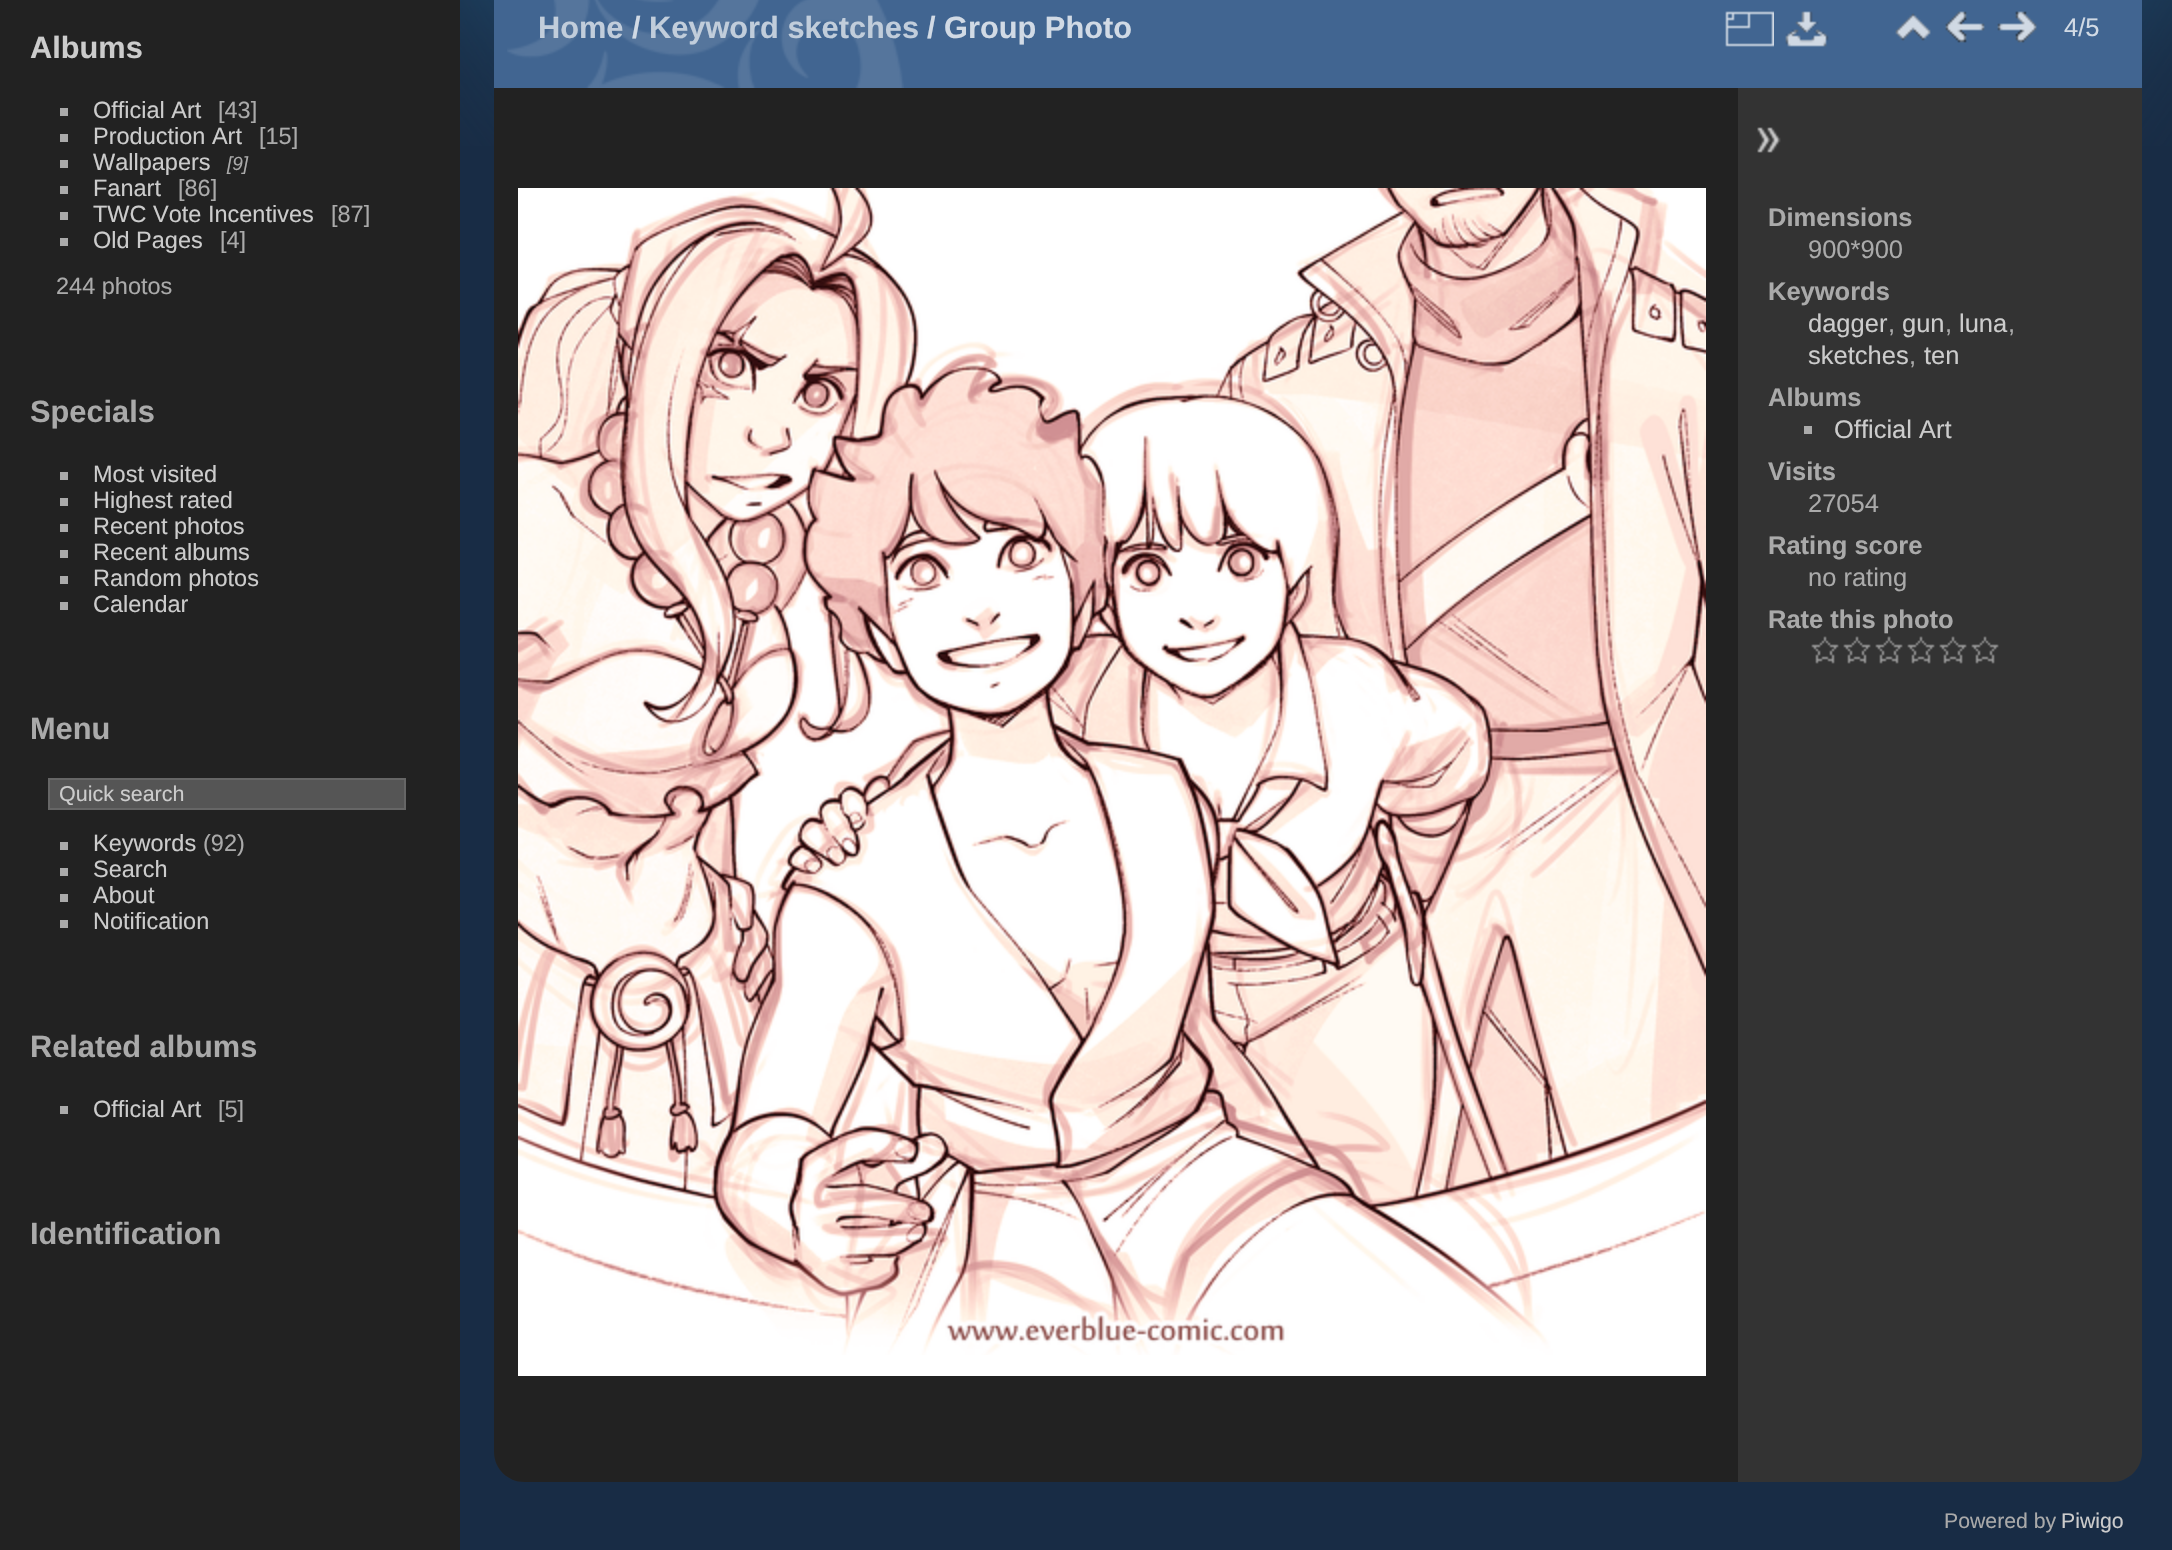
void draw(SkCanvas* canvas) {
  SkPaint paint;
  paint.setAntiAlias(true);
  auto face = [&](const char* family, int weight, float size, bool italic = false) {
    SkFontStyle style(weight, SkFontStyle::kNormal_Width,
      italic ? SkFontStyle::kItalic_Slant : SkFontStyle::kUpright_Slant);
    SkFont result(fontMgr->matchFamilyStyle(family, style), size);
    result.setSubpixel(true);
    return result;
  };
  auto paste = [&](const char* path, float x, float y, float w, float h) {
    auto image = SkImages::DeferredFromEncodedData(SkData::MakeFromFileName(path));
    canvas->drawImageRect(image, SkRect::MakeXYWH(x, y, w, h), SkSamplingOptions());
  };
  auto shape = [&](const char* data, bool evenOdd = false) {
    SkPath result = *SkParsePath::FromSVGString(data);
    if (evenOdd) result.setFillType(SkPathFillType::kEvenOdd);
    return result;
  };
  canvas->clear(0xff182c45);
  {
    const SkColor colors[] = {0xff75c6f0, 0xffa3e1fa, 0xff34a0e1, 0xff266591, 0xff182c45};
    const float stops[] = {0.01f, 0.11f, 0.12f, 0.21f, 0.31f};
    const SkPoint ends[] = {{1306, -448}, {1306, 1490}};
    paint.setShader(SkGradientShader::MakeLinear(ends, colors, stops, 5, SkTileMode::kClamp));
    paint.setAlpha(255);
  }
  canvas->drawRect(SkRect::MakeXYWH(460, 0, 1712, 146), paint);
  {
    const SkColor colors[] = {0x00182c45, 0xff182c45, 0xff182c45};
    const float stops[] = {0.39f, 0.63f, 0.95f};
    paint.setShader(SkGradientShader::MakeRadial({1306, -448}, 1679, colors, stops, 3, SkTileMode::kClamp));
    paint.setAlpha(255);
  }
  canvas->drawRect(SkRect::MakeXYWH(460, 0, 1712, 146), paint);
  paint.setShader(nullptr);
  {
    const struct { float x, y, w, h; SkColor color; } items[] = {
      {0, 0, 460, 1550, 0xff222222},
      {60, 108, 8, 8, 0xffaaaaaa},
      {60, 134, 8, 8, 0xffaaaaaa},
      {60, 160, 8, 8, 0xffaaaaaa},
      {60, 186, 8, 8, 0xffaaaaaa},
      {60, 212, 8, 8, 0xffaaaaaa},
      {60, 238, 8, 8, 0xffaaaaaa},
      {60, 472, 8, 8, 0xffaaaaaa},
      {60, 498, 8, 8, 0xffaaaaaa},
      {60, 524, 8, 8, 0xffaaaaaa},
      {60, 550, 8, 8, 0xffaaaaaa},
      {60, 576, 8, 8, 0xffaaaaaa},
      {60, 602, 8, 8, 0xffaaaaaa},
    };
    for (auto [x, y, w, h, color] : items) {
      paint.setColor(color);
      canvas->drawRect(SkRect::MakeXYWH(x, y, w, h), paint);
    }
  }
  paint.setColor(0xff555555);
  canvas->drawRect(SkRect::MakeXYWH(49, 779, 356, 30), paint);
  paint.setStroke(true);
  paint.setStrokeWidth(2);
  paint.setColor(0xff666666);
  canvas->drawRect(SkRect::MakeXYWH(49, 779, 356, 30), paint);
  paint.setStroke(false);
  {
    const struct { float x, y, w, h; SkColor color; } items[] = {
      {60, 842, 8, 8, 0xffaaaaaa},
      {60, 868, 8, 8, 0xffaaaaaa},
      {60, 894, 8, 8, 0xffaaaaaa},
      {60, 920, 8, 8, 0xffaaaaaa},
      {60, 1106, 8, 8, 0xffaaaaaa},
      {494, 0, 1648, 88, 0xff416591},
    };
    for (auto [x, y, w, h, color] : items) {
      paint.setColor(color);
      canvas->drawRect(SkRect::MakeXYWH(x, y, w, h), paint);
    }
  }
  paste("img/1.png", 507, 0, 397, 88);
  paste("img/2.png", 1725, 11, 49, 36);
  paste("img/3.png", 1785, 11, 44, 36);
  paste("img/4.png", 1895, 13, 36, 28);
  paste("img/5.png", 1945, 11, 40, 32);
  paste("img/6.png", 1997, 11, 40, 32);
  paint.setColor(0xff222222);
  canvas->drawPath(shape("M494 88H1738V1482H524C507.5 1482 494 1468.5 494 1452Z"), paint);
  paint.setColor(0xff333333);
  canvas->drawPath(shape("M1738 88H2142V1452C2142 1468.5 2128.5 1482 2112 1482H1738Z"), paint);
  paste("img/7.png", 1757, 127, 24, 26);
  paint.setColor(0xffffffff);
  canvas->drawRect(SkRect::MakeXYWH(518, 188, 1188, 1188), paint);
  paste("img/8.png", 518, 188, 1188, 1167);
  paint.setColor(0xffaaaaaa);
  canvas->drawRect(SkRect::MakeXYWH(1804, 426, 8, 8), paint);
  paste("img/9.png", 1811, 636, 28, 28);
  paste("img/9.png", 1843, 636, 28, 28);
  paste("img/9.png", 1875, 636, 28, 28);
  paste("img/9.png", 1907, 636, 28, 28);
  paste("img/9.png", 1939, 636, 28, 28);
  paste("img/9.png", 1971, 636, 28, 28);
  auto f0 = face("Liberation Sans", 700, 30.75f);
  paint.setColor(0xffcccccc);
  canvas->drawString("Albums", 30, 58, f0, paint);
  auto f1 = face("Liberation Sans", 400, 23.5f);
  canvas->drawString("Official Art", 93, 118, f1, paint);
  paint.setColor(0xffaaaaaa);
  canvas->drawString("[43]", 218, 118, f1, paint);
  paint.setColor(0xffcccccc);
  canvas->drawString("Production Art", 93, 144, f1, paint);
  paint.setColor(0xffaaaaaa);
  canvas->drawString("[15]", 259, 144, f1, paint);
  paint.setColor(0xffcccccc);
  canvas->drawString("Wallpapers", 93, 170, f1, paint);
  auto f2 = face("Liberation Sans", 400, 19, true);
  paint.setColor(0xffaaaaaa);
  canvas->drawString("[9]", 227, 170, f2, paint);
  paint.setColor(0xffcccccc);
  canvas->drawString("Fanart", 93, 196, f1, paint);
  paint.setColor(0xffaaaaaa);
  canvas->drawString("[86]", 178, 196, f1, paint);
  paint.setColor(0xffcccccc);
  canvas->drawString("TWC Vote Incentives", 93, 222, f1, paint);
  paint.setColor(0xffaaaaaa);
  canvas->drawString("[87]", 331, 222, f1, paint);
  paint.setColor(0xffcccccc);
  canvas->drawString("Old Pages", 93, 248, f1, paint);
  paint.setColor(0xffaaaaaa);
  canvas->drawString("[4]", 220, 248, f1, paint);
  canvas->drawString("244 photos", 56, 294, f1, paint);
  canvas->drawString("Specials", 30, 422, f0, paint);
  paint.setColor(0xffcccccc);
  {
    const struct { const char* s; float x, y; } items[] = {
      {"Most visited", 93, 482},
      {"Highest rated", 93, 508},
      {"Recent photos", 93, 534},
      {"Recent albums", 93, 560},
      {"Random photos", 93, 586},
      {"Calendar", 93, 612},
    };
    for (auto [s, x, y] : items) {
      canvas->drawString(s, x, y, f1, paint);
    }
  }
  paint.setColor(0xffaaaaaa);
  canvas->drawString("Menu", 30, 739, f0, paint);
  auto f3 = face("Liberation Sans", 400, 21.5f);
  paint.setColor(0xffcccccc);
  canvas->drawString("Quick search", 59, 801, f3, paint);
  canvas->drawString("Keywords", 93, 851, f1, paint);
  paint.setColor(0xffaaaaaa);
  canvas->drawString("(92)", 203, 851, f1, paint);
  paint.setColor(0xffcccccc);
  {
    const struct { const char* s; float x, y; } items[] = {
      {"Search", 93, 877},
      {"About", 93, 903},
      {"Notification", 93, 929},
    };
    for (auto [s, x, y] : items) {
      canvas->drawString(s, x, y, f1, paint);
    }
  }
  paint.setColor(0xffaaaaaa);
  canvas->drawString("Related albums", 30, 1057, f0, paint);
  paint.setColor(0xffcccccc);
  canvas->drawString("Official Art", 93, 1117, f1, paint);
  paint.setColor(0xffaaaaaa);
  canvas->drawString("[5]", 218, 1117, f1, paint);
  canvas->drawString("Identification", 30, 1244, f0, paint);
  paint.setColor(0xffc1cddb);
  canvas->drawString("Home", 538, 38, f0, paint);
  paint.setColor(0xffd1dae5);
  canvas->drawString("/", 632, 38, f0, paint);
  paint.setColor(0xffc1cddb);
  canvas->drawString("Keyword sketches", 649, 38, f0, paint);
  paint.setColor(0xffd1dae5);
  canvas->drawString("/ Group Photo", 927, 38, f0, paint);
  auto f4 = face("Liberation Sans", 400, 25.5f);
  canvas->drawString("4/5", 2064, 36, f4, paint);
  auto f5 = face("Liberation Sans", 700, 25.5f);
  paint.setColor(0xffaaaaaa);
  canvas->drawString("Dimensions", 1768, 226, f5, paint);
  canvas->drawString("900*900", 1808, 258, f4, paint);
  canvas->drawString("Keywords", 1768, 300, f5, paint);
  paint.setColor(0xffcccccc);
  canvas->drawString("dagger", 1808, 332, f4, paint);
  paint.setColor(0xffaaaaaa);
  canvas->drawString(",", 1888, 332, f4, paint);
  paint.setColor(0xffcccccc);
  canvas->drawString("gun", 1902, 332, f4, paint);
  paint.setColor(0xffaaaaaa);
  canvas->drawString(",", 1945, 332, f4, paint);
  paint.setColor(0xffcccccc);
  canvas->drawString("luna", 1959, 332, f4, paint);
  paint.setColor(0xffaaaaaa);
  canvas->drawString(",", 2008, 332, f4, paint);
  paint.setColor(0xffcccccc);
  canvas->drawString("sketches", 1808, 364, f4, paint);
  paint.setColor(0xffaaaaaa);
  canvas->drawString(",", 1909, 364, f4, paint);
  paint.setColor(0xffcccccc);
  canvas->drawString("ten", 1924, 364, f4, paint);
  paint.setColor(0xffaaaaaa);
  canvas->drawString("Albums", 1768, 406, f5, paint);
  paint.setColor(0xffcccccc);
  canvas->drawString("Official Art", 1834, 438, f4, paint);
  paint.setColor(0xffaaaaaa);
  canvas->drawString("Visits", 1768, 480, f5, paint);
  canvas->drawString("27054", 1808, 512, f4, paint);
  canvas->drawString("Rating score", 1768, 554, f5, paint);
  canvas->drawString("no rating", 1808, 586, f4, paint);
  canvas->drawString("Rate this photo", 1768, 628, f5, paint);
  auto f6 = face("Liberation Sans", 400, 21.25f);
  canvas->drawString("Powered by", 1944, 1528, f6, paint);
  paint.setColor(0xffcccccc);
  canvas->drawString("Piwigo", 2061, 1528, f6, paint);
}
